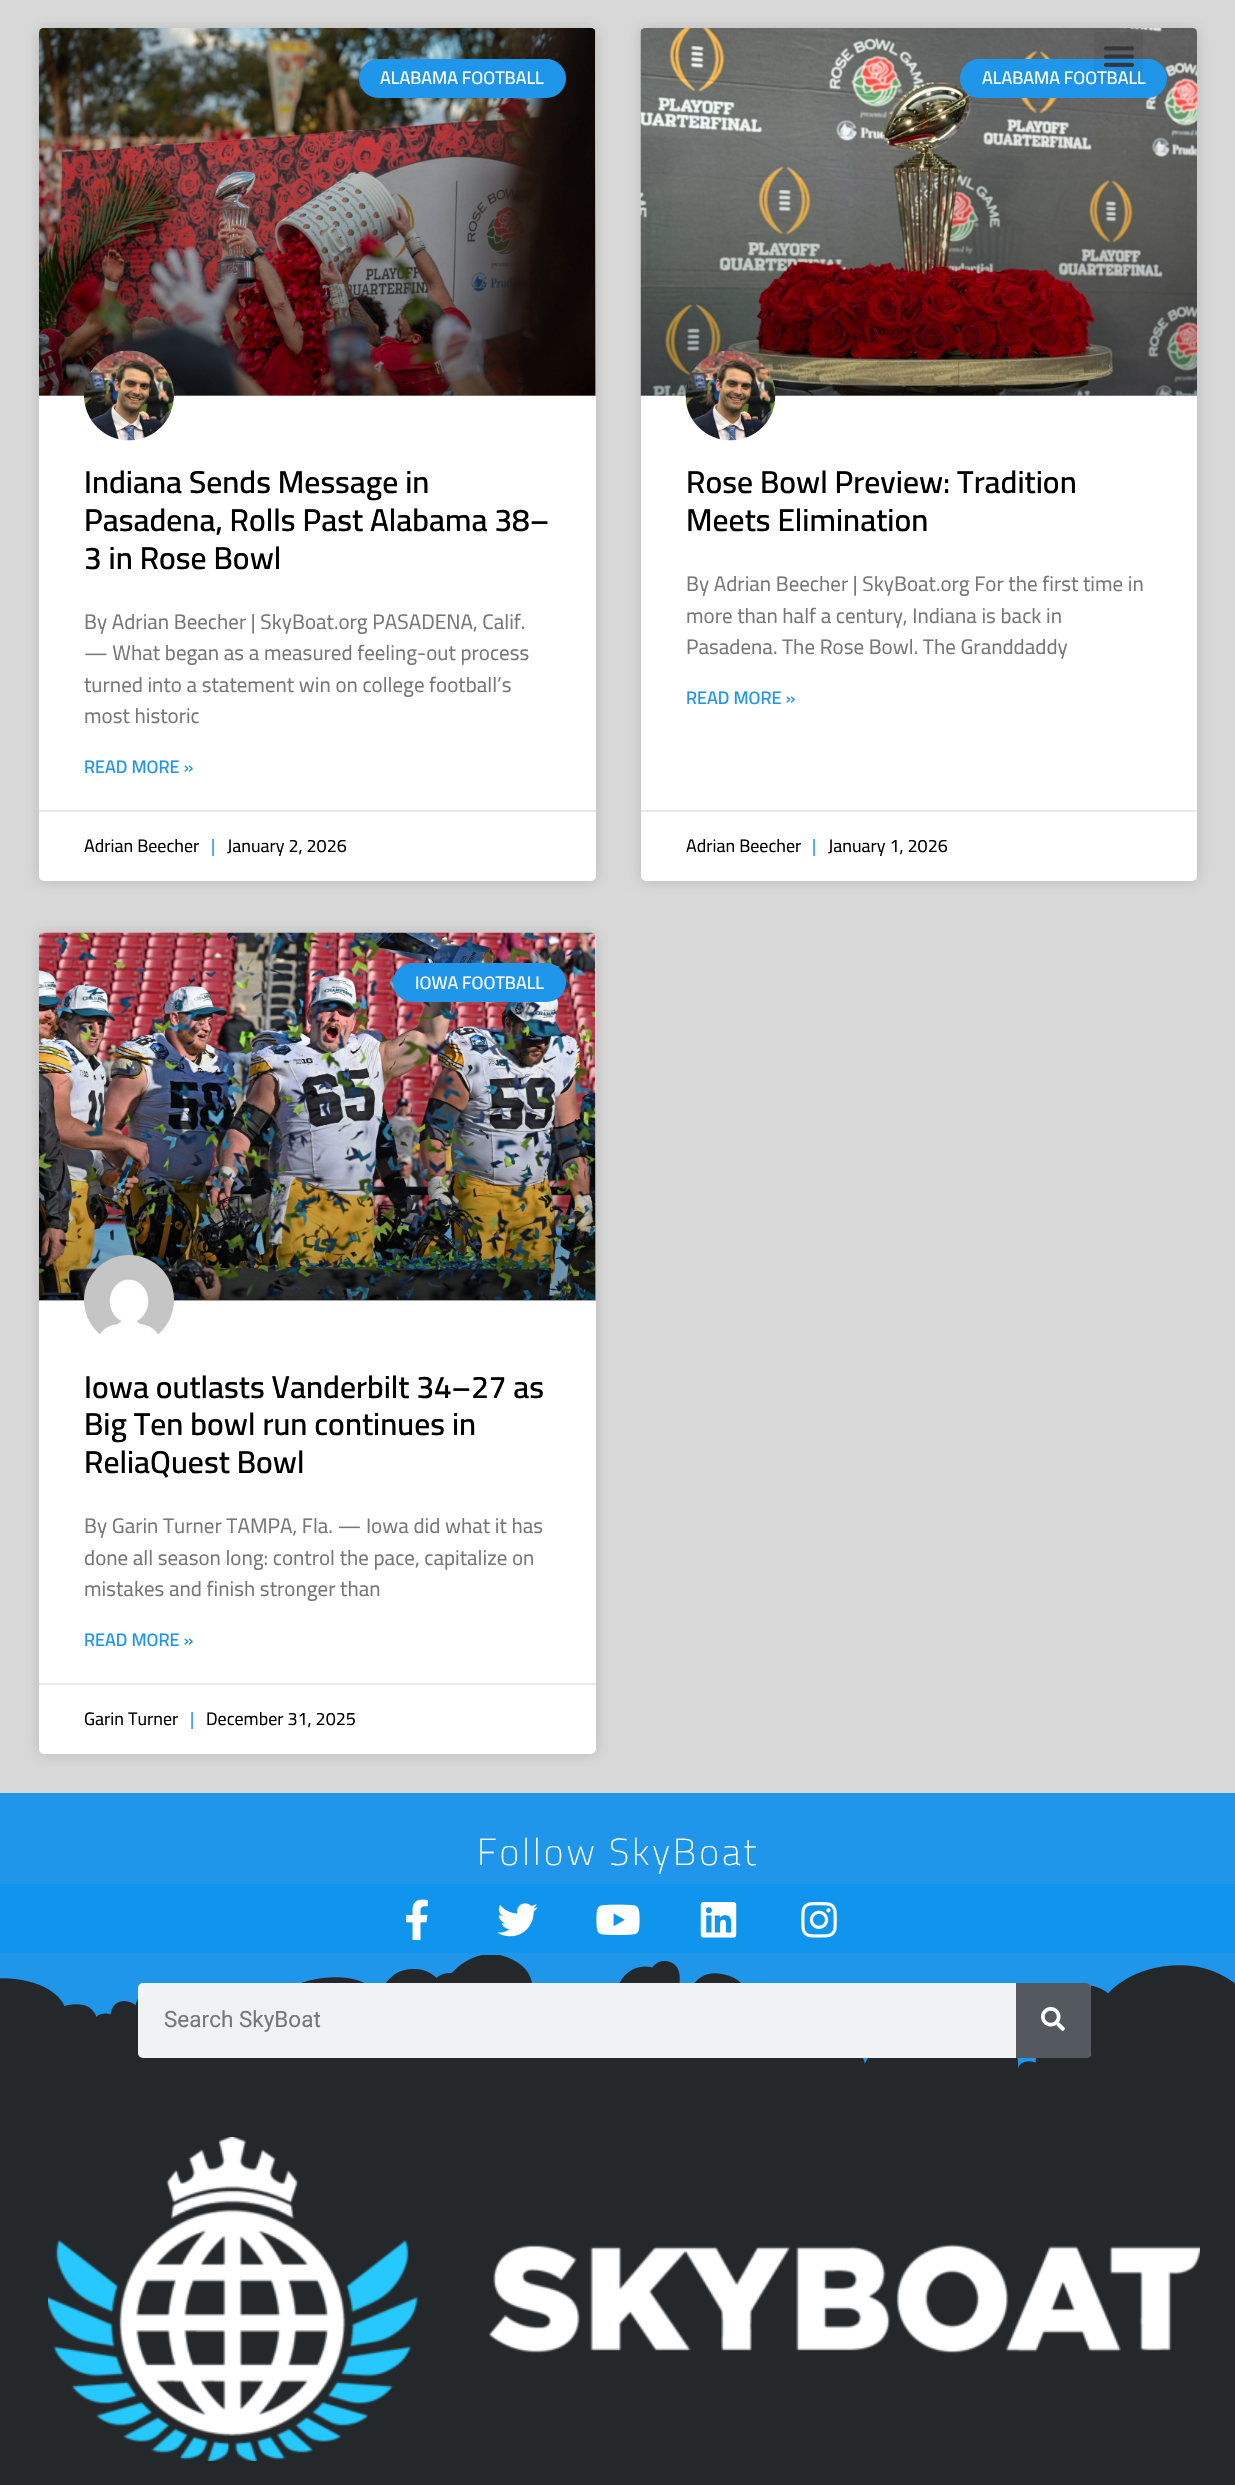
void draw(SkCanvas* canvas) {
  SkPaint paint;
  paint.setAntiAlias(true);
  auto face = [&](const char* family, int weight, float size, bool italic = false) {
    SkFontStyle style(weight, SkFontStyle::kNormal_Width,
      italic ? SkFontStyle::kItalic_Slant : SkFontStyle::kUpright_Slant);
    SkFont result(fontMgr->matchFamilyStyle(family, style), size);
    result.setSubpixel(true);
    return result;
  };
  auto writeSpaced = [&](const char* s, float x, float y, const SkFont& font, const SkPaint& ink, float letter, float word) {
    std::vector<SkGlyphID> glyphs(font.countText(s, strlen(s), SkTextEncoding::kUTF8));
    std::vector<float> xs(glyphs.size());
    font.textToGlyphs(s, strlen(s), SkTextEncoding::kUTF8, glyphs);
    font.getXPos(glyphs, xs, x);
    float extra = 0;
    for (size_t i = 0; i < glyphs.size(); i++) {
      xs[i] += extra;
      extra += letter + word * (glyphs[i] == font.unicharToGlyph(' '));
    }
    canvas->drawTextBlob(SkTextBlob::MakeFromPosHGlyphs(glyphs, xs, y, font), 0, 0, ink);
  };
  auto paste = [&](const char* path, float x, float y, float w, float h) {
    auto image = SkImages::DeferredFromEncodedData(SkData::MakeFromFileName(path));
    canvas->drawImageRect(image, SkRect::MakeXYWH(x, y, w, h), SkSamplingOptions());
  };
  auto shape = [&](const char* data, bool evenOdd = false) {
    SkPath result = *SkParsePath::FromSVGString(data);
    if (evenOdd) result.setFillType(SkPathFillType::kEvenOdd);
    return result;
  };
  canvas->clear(0xffd9d9d9);
  paint.setColor(0x26000000);
  paint.setMaskFilter(SkMaskFilter::MakeBlur(kNormal_SkBlurStyle, 7.5f));
  canvas->drawRoundRect(SkRect::MakeXYWH(641, 29, 556, 852), 5, 5, paint);
  paint.setMaskFilter(nullptr);
  paint.setColor(0xffffffff);
  canvas->drawRoundRect(SkRect::MakeXYWH(641, 29, 556, 852), 5, 5, paint);
  paste("img/4.png", 640, 28, 557, 368);
  paint.setColor(0xff2096eb);
  canvas->drawRoundRect(SkRect::MakeXYWH(960, 59, 207, 39), 19.5f, 19.5f, paint);
  paint.setColor(0x0d000000);
  canvas->drawRect(SkRect::MakeXYWH(1094, 32, 49, 49), paint);
  paste("img/1.png", 1103, 46, 32, 21);
  paint.setColor(0x26000000);
  paint.setMaskFilter(SkMaskFilter::MakeBlur(kNormal_SkBlurStyle, 7.5f));
  canvas->drawRoundRect(SkRect::MakeXYWH(39, 29, 557, 852), 5, 5, paint);
  paint.setMaskFilter(nullptr);
  paint.setColor(0xffffffff);
  canvas->drawRoundRect(SkRect::MakeXYWH(39, 29, 557, 852), 5, 5, paint);
  paste("img/2.png", 39, 28, 557, 368);
  {
    const SkColor colors[] = {0x59000000, 0x00000000};
    const float stops[] = {0, 0.75f};
    const SkPoint ends[] = {{317, 396}, {317, 29}};
    paint.setShader(SkGradientShader::MakeLinear(ends, colors, stops, 2, SkTileMode::kClamp));
    paint.setAlpha(255);
  }
  canvas->drawRect(SkRect::MakeXYWH(39, 138, 557, 258), paint);
  paint.setShader(nullptr);
  paint.setColor(0xff2096eb);
  canvas->drawRoundRect(SkRect::MakeXYWH(359, 59, 207, 39), 19.5f, 19.5f, paint);
  paste("img/3.png", 84, 350, 90, 91);
  paint.setColor(0xffeaeaea);
  canvas->drawRect(SkRect::MakeXYWH(39, 810, 557, 2), paint);
  {
    const SkColor colors[] = {0x59000000, 0x00000000};
    const float stops[] = {0, 0.75f};
    const SkPoint ends[] = {{919, 396}, {919, 29}};
    paint.setShader(SkGradientShader::MakeLinear(ends, colors, stops, 2, SkTileMode::kClamp));
    paint.setAlpha(255);
  }
  canvas->drawRect(SkRect::MakeXYWH(641, 138, 556, 258), paint);
  paste("img/5.png", 685, 350, 91, 91);
  paint.setShader(nullptr);
  paint.setColor(0xffeaeaea);
  canvas->drawRect(SkRect::MakeXYWH(641, 810, 556, 2), paint);
  paint.setColor(0x26000000);
  paint.setMaskFilter(SkMaskFilter::MakeBlur(kNormal_SkBlurStyle, 7.5f));
  canvas->drawRoundRect(SkRect::MakeXYWH(39, 933, 557, 821), 5, 5, paint);
  paint.setMaskFilter(nullptr);
  paint.setColor(0xffffffff);
  canvas->drawRoundRect(SkRect::MakeXYWH(39, 933, 557, 821), 5, 5, paint);
  paste("img/6.png", 39, 932, 557, 368);
  {
    const SkColor colors[] = {0x59000000, 0x00000000};
    const float stops[] = {0, 0.75f};
    const SkPoint ends[] = {{317, 1301}, {317, 933}};
    paint.setShader(SkGradientShader::MakeLinear(ends, colors, stops, 2, SkTileMode::kClamp));
    paint.setAlpha(255);
  }
  canvas->drawRect(SkRect::MakeXYWH(39, 1042, 557, 259), paint);
  paint.setShader(nullptr);
  paint.setColor(0xff2096eb);
  canvas->drawRoundRect(SkRect::MakeXYWH(393, 963, 173, 39), 19.5f, 19.5f, paint);
  paste("img/7.png", 84, 1255, 90, 79);
  {
    const struct { float x, y, w, h; SkColor color; } items[] = {
      {39, 1683, 557, 2, 0xffeaeaea},
      {0, 1793, 1235, 91, 0xff2096eb},
      {0, 1884, 1235, 71, 0xff1095ef},
    };
    for (auto [x, y, w, h, color] : items) {
      paint.setColor(color);
      canvas->drawRect(SkRect::MakeXYWH(x, y, w, h), paint);
    }
  }
  paste("img/8.png", 406, 1899, 22, 42);
  paste("img/9.png", 497, 1903, 41, 34);
  paste("img/10.png", 596, 1904, 44, 31);
  paste("img/11.png", 700, 1902, 37, 36);
  paste("img/12.png", 801, 1902, 36, 36);
  paint.setColor(0xff25282b);
  canvas->drawRect(SkRect::MakeXYWH(0, 1955, 1235, 530), paint);
  paste("img/13.png", 0, 1953, 1235, 115);
  paint.setColor(0xfff1f2f3);
  canvas->drawRoundRect(SkRect::MakeXYWH(138, 1983, 953, 75), 5, 5, paint);
  paint.setColor(0xff54595f);
  canvas->drawPath(shape("M1016 1983H1086C1089 1983 1091 1985 1091 1988V2053C1091 2056 1089 2058 1086 2058H1016Z"), paint);
  paste("img/14.png", 1041, 2007, 24, 24);
  paste("img/15.png", 48, 2137, 1152, 324);
  auto f0 = face("Cairo", 500, 18);
  paint.setColor(0xffffffff);
  canvas->drawString("ALABAMA FOOTBALL", 380, 84, f0, paint);
  auto f1 = face("Cairo", 600, 31.5f);
  paint.setColor(0xff000000);
  {
    const struct { const char* s; float x, y; } items[] = {
      {"Indiana Sends Message in", 84, 493},
      {"Pasadena, Rolls Past Alabama 38–", 84, 531},
      {"3 in Rose Bowl", 84, 569},
    };
    for (auto [s, x, y] : items) {
      canvas->drawString(s, x, y, f1, paint);
    }
  }
  auto f2 = face("Cairo", 400, 21);
  paint.setColor(0xff777777);
  {
    const struct { const char* s; float x, y; } items[] = {
      {"By Adrian Beecher | SkyBoat.org PASADENA, Calif.", 84, 629},
      {"— What began as a measured feeling-out process", 84, 660},
      {"turned into a statement win on college football’s", 84, 692},
      {"most historic", 84, 723},
    };
    for (auto [s, x, y] : items) {
      canvas->drawString(s, x, y, f2, paint);
    }
  }
  auto f3 = face("Cairo", 600, 18);
  paint.setColor(0xff2096eb);
  canvas->drawString("READ MORE »", 84, 773, f3, paint);
  auto f4 = face("Cairo", 400, 18);
  paint.setColor(0xff000000);
  canvas->drawString("Adrian Beecher", 84, 852, f4, paint);
  paint.setColor(0xff2096eb);
  canvas->drawString("|", 211, 852, f4, paint);
  paint.setColor(0xff000000);
  canvas->drawString("January 2, 2026", 227, 852, f4, paint);
  paint.setColor(0xffffffff);
  canvas->drawString("ALABAMA FOOTBALL", 982, 84, f0, paint);
  paint.setColor(0xff000000);
  canvas->drawString("Rose Bowl Preview: Tradition", 686, 493, f1, paint);
  canvas->drawString("Meets Elimination", 686, 531, f1, paint);
  paint.setColor(0xff777777);
  {
    const struct { const char* s; float x, y; } items[] = {
      {"By Adrian Beecher | SkyBoat.org For the first time in", 686, 591},
      {"more than half a century, Indiana is back in", 686, 623},
      {"Pasadena. The Rose Bowl. The Granddaddy", 686, 654},
    };
    for (auto [s, x, y] : items) {
      canvas->drawString(s, x, y, f2, paint);
    }
  }
  paint.setColor(0xff2096eb);
  canvas->drawString("READ MORE »", 686, 704, f3, paint);
  paint.setColor(0xff000000);
  canvas->drawString("Adrian Beecher", 686, 852, f4, paint);
  paint.setColor(0xff2096eb);
  canvas->drawString("|", 812, 852, f4, paint);
  paint.setColor(0xff000000);
  canvas->drawString("January 1, 2026", 828, 852, f4, paint);
  paint.setColor(0xffffffff);
  canvas->drawString("IOWA FOOTBALL", 415, 989, f0, paint);
  paint.setColor(0xff000000);
  {
    const struct { const char* s; float x, y; } items[] = {
      {"Iowa outlasts Vanderbilt 34–27 as", 84, 1398},
      {"Big Ten bowl run continues in", 84, 1435},
      {"ReliaQuest Bowl", 84, 1473},
    };
    for (auto [s, x, y] : items) {
      canvas->drawString(s, x, y, f1, paint);
    }
  }
  paint.setColor(0xff777777);
  {
    const struct { const char* s; float x, y; } items[] = {
      {"By Garin Turner TAMPA, Fla. — Iowa did what it has", 84, 1533},
      {"done all season long: control the pace, capitalize on", 84, 1565},
      {"mistakes and finish stronger than", 84, 1596},
    };
    for (auto [s, x, y] : items) {
      canvas->drawString(s, x, y, f2, paint);
    }
  }
  paint.setColor(0xff2096eb);
  canvas->drawString("READ MORE »", 84, 1646, f3, paint);
  paint.setColor(0xff000000);
  canvas->drawString("Garin Turner", 84, 1725, f4, paint);
  paint.setColor(0xff2096eb);
  canvas->drawString("|", 190, 1725, f4, paint);
  paint.setColor(0xff000000);
  canvas->drawString("December 31, 2025", 206, 1725, f4, paint);
  auto f5 = face("Cairo", 200, 37.5f);
  paint.setColor(0xffffffff);
  writeSpaced("Follow SkyBoat", 477, 1865, f5, paint, 3, 0);
  auto f6 = face("Roboto", 400, 22.5f);
  paint.setColor(0xff777777);
  canvas->drawString("Search SkyBoat", 164, 2027, f6, paint);
}
